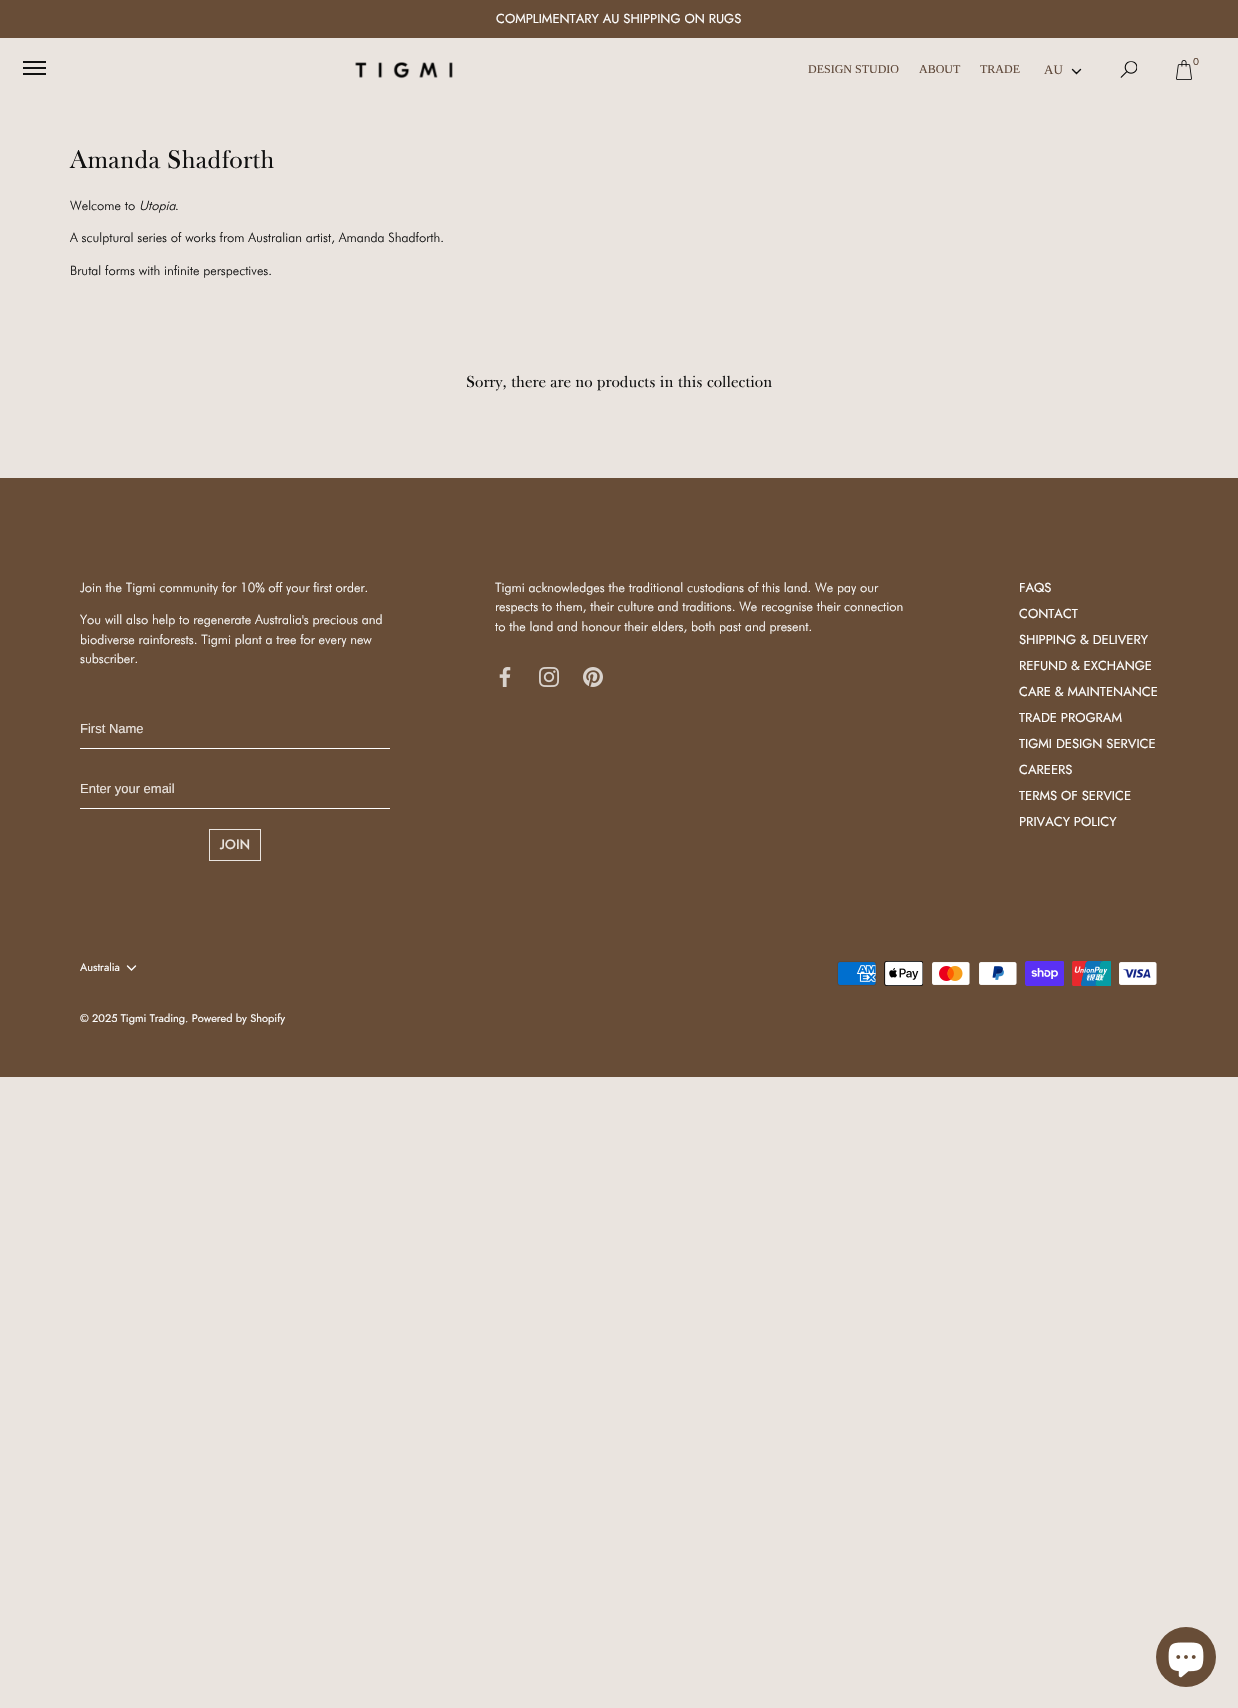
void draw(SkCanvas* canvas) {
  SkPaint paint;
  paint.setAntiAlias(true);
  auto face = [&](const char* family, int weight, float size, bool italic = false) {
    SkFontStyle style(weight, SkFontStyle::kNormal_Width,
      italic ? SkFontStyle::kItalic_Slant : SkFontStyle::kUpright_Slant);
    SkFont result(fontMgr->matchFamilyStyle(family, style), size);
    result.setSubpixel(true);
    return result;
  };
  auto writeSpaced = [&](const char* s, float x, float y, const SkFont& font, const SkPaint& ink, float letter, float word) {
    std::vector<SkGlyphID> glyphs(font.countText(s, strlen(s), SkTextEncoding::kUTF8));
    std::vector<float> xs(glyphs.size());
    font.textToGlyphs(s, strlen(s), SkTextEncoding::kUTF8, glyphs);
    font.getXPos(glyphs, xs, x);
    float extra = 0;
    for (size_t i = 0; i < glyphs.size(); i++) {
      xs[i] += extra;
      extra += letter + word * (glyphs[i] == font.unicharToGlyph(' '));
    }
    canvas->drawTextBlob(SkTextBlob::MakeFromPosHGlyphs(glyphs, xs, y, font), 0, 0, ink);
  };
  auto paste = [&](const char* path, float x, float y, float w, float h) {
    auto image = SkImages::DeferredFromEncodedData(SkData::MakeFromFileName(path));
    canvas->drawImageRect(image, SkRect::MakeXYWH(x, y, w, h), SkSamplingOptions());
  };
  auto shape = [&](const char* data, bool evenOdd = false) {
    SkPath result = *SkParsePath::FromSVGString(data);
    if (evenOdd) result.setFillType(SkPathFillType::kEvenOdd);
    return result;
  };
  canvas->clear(0xffeae4df);
  {
    const struct { float x, y, w, h; SkColor color; } items[] = {
      {0, 0, 1238, 38, 0xff684d37},
      {23, 61, 23, 2, 0xff111111},
      {23, 67, 23, 2, 0xff111111},
      {23, 73, 23, 2, 0xff111111},
    };
    for (auto [x, y, w, h, color] : items) {
      paint.setColor(color);
      canvas->drawRect(SkRect::MakeXYWH(x, y, w, h), paint);
    }
  }
  paste("img/1.png", 355, 62, 98, 17);
  paint.setStroke(true);
  paint.setStrokeWidth(1.4f);
  paint.setStrokeCap(SkPaint::kRound_Cap);
  canvas->drawPath(shape("M1072.5 69.5L1076.5 73.5L1080.5 69.5"), paint);
  paste("img/2.png", 1120, 61, 18, 17);
  paste("img/3.png", 1176, 60, 16, 20);
  paint.setStroke(false);
  {
    const struct { float x, y, w, h; SkColor color; } items[] = {
      {0, 478, 1238, 599, 0xff684d37},
      {80, 748, 310, 1, 0xffffffff},
      {80, 808, 310, 1, 0xffffffff},
    };
    for (auto [x, y, w, h, color] : items) {
      paint.setColor(color);
      canvas->drawRect(SkRect::MakeXYWH(x, y, w, h), paint);
    }
  }
  paint.setStroke(true);
  paint.setStrokeWidth(1);
  paint.setStrokeCap(SkPaint::kButt_Cap);
  paint.setColor(0xffeae4df);
  canvas->drawRect(SkRect::MakeXYWH(209.5f, 829.5f, 51, 31), paint);
  paste("img/4.png", 499, 667, 12, 20);
  paste("img/5.png", 539, 667, 20, 20);
  paste("img/6.png", 583, 667, 20, 20);
  paint.setStrokeWidth(1.4f);
  paint.setStrokeCap(SkPaint::kRound_Cap);
  paint.setColor(0xffffffff);
  canvas->drawPath(shape("M127.5 966L131.5 970L135.5 966"), paint);
  paste("img/7.png", 837, 961, 40, 25);
  paste("img/8.png", 884, 961, 39, 25);
  paste("img/9.png", 932, 962, 38, 23);
  paste("img/10.png", 979, 962, 38, 23);
  paste("img/11.png", 1025, 961, 39, 25);
  paste("img/12.png", 1072, 961, 39, 25);
  paste("img/13.png", 1119, 962, 38, 23);
  paint.setStroke(false);
  paint.setColor(0xff684d37);
  canvas->drawCircle(1186, 1657, 30, paint);
  paste("img/14.png", 1168, 1642, 36, 36);
  auto f0 = face("Jost", 400, 13);
  paint.setColor(0xffffffff);
  canvas->drawString("COMPLIMENTARY AU SHIPPING ON RUGS", 496, 23, f0, paint);
  auto f1 = face("Liberation Serif", 400, 12);
  paint.setColor(0xff5f4839);
  {
    const struct { const char* s; float x, y; } items[] = {
      {"DESIGN STUDIO", 808, 73},
      {"ABOUT", 919, 73},
      {"TRADE", 980, 73},
    };
    for (auto [s, x, y] : items) {
      canvas->drawString(s, x, y, f1, paint);
    }
  }
  auto f2 = face("Liberation Serif", 400, 13);
  canvas->drawString("AU", 1044, 74, f2, paint);
  auto f3 = face("Jost", 400, 10);
  canvas->drawString("0", 1193, 65, f3, paint);
  auto f4 = face("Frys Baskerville", 400, 26);
  paint.setColor(0xff111111);
  canvas->drawString("Amanda Shadforth", 70, 168, f4, paint);
  auto f5 = face("Futura", 300, 13);
  canvas->drawString("Welcome to", 70, 210, f5, paint);
  auto f6 = face("Futura", 300, 13, true);
  canvas->drawString("Utopia", 139, 210, f6, paint);
  {
    const struct { const char* s; float x, y; } items[] = {
      {".", 175, 210},
      {"A sculptural series of works from Australian artist, Amanda Shadforth.", 70, 242},
      {"Brutal forms with infinite perspectives.", 70, 275},
    };
    for (auto [s, x, y] : items) {
      canvas->drawString(s, x, y, f5, paint);
    }
  }
  auto f7 = face("Frys Baskerville", 400, 16.25f);
  canvas->drawString("Sorry, there are no products in this collection", 466, 387, f7, paint);
  paint.setColor(0xffffffff);
  {
    const struct { const char* s; float x, y; } items[] = {
      {"Join the Tigmi community for 10% off your first order.", 80, 592},
      {"You will also help to regenerate Australia's precious and", 80, 624},
      {"biodiverse rainforests. Tigmi plant a tree for every new", 80, 644},
      {"subscriber.", 80, 663},
    };
    for (auto [s, x, y] : items) {
      canvas->drawString(s, x, y, f5, paint);
    }
  }
  auto f8 = face("Liberation Sans", 400, 13);
  paint.setColor(0xffeae4df);
  canvas->drawString("First Name", 80, 733, f8, paint);
  canvas->drawString("Enter your email", 80, 793, f8, paint);
  auto f9 = face("Futura", 700, 12);
  writeSpaced("JOIN", 220, 849, f9, paint, 1, 0);
  paint.setColor(0xffffffff);
  {
    const struct { const char* s; float x, y; } items[] = {
      {"Tigmi acknowledges the traditional custodians of this land. We pay our", 495, 592},
      {"respects to them, their culture and traditions. We recognise their connection", 495, 611},
      {"to the land and honour their elders, both past and present.", 495, 631},
    };
    for (auto [s, x, y] : items) {
      canvas->drawString(s, x, y, f5, paint);
    }
  }
  {
    const struct { const char* s; float x, y; } items[] = {
      {"FAQS", 1019, 592},
      {"CONTACT", 1019, 618},
      {"SHIPPING & DELIVERY", 1019, 644},
      {"REFUND & EXCHANGE", 1019, 670},
      {"CARE & MAINTENANCE", 1019, 696},
      {"TRADE PROGRAM", 1019, 722},
      {"TIGMI DESIGN SERVICE", 1019, 748},
      {"CAREERS", 1019, 774},
      {"TERMS OF SERVICE", 1019, 800},
      {"PRIVACY POLICY", 1019, 826},
    };
    for (auto [s, x, y] : items) {
      canvas->drawString(s, x, y, f0, paint);
    }
  }
  auto f10 = face("Jost", 400, 11);
  canvas->drawString("Australia", 80, 971, f10, paint);
  canvas->drawString("© 2025 Tigmi Trading. Powered by Shopify", 80, 1022, f10, paint);
}
